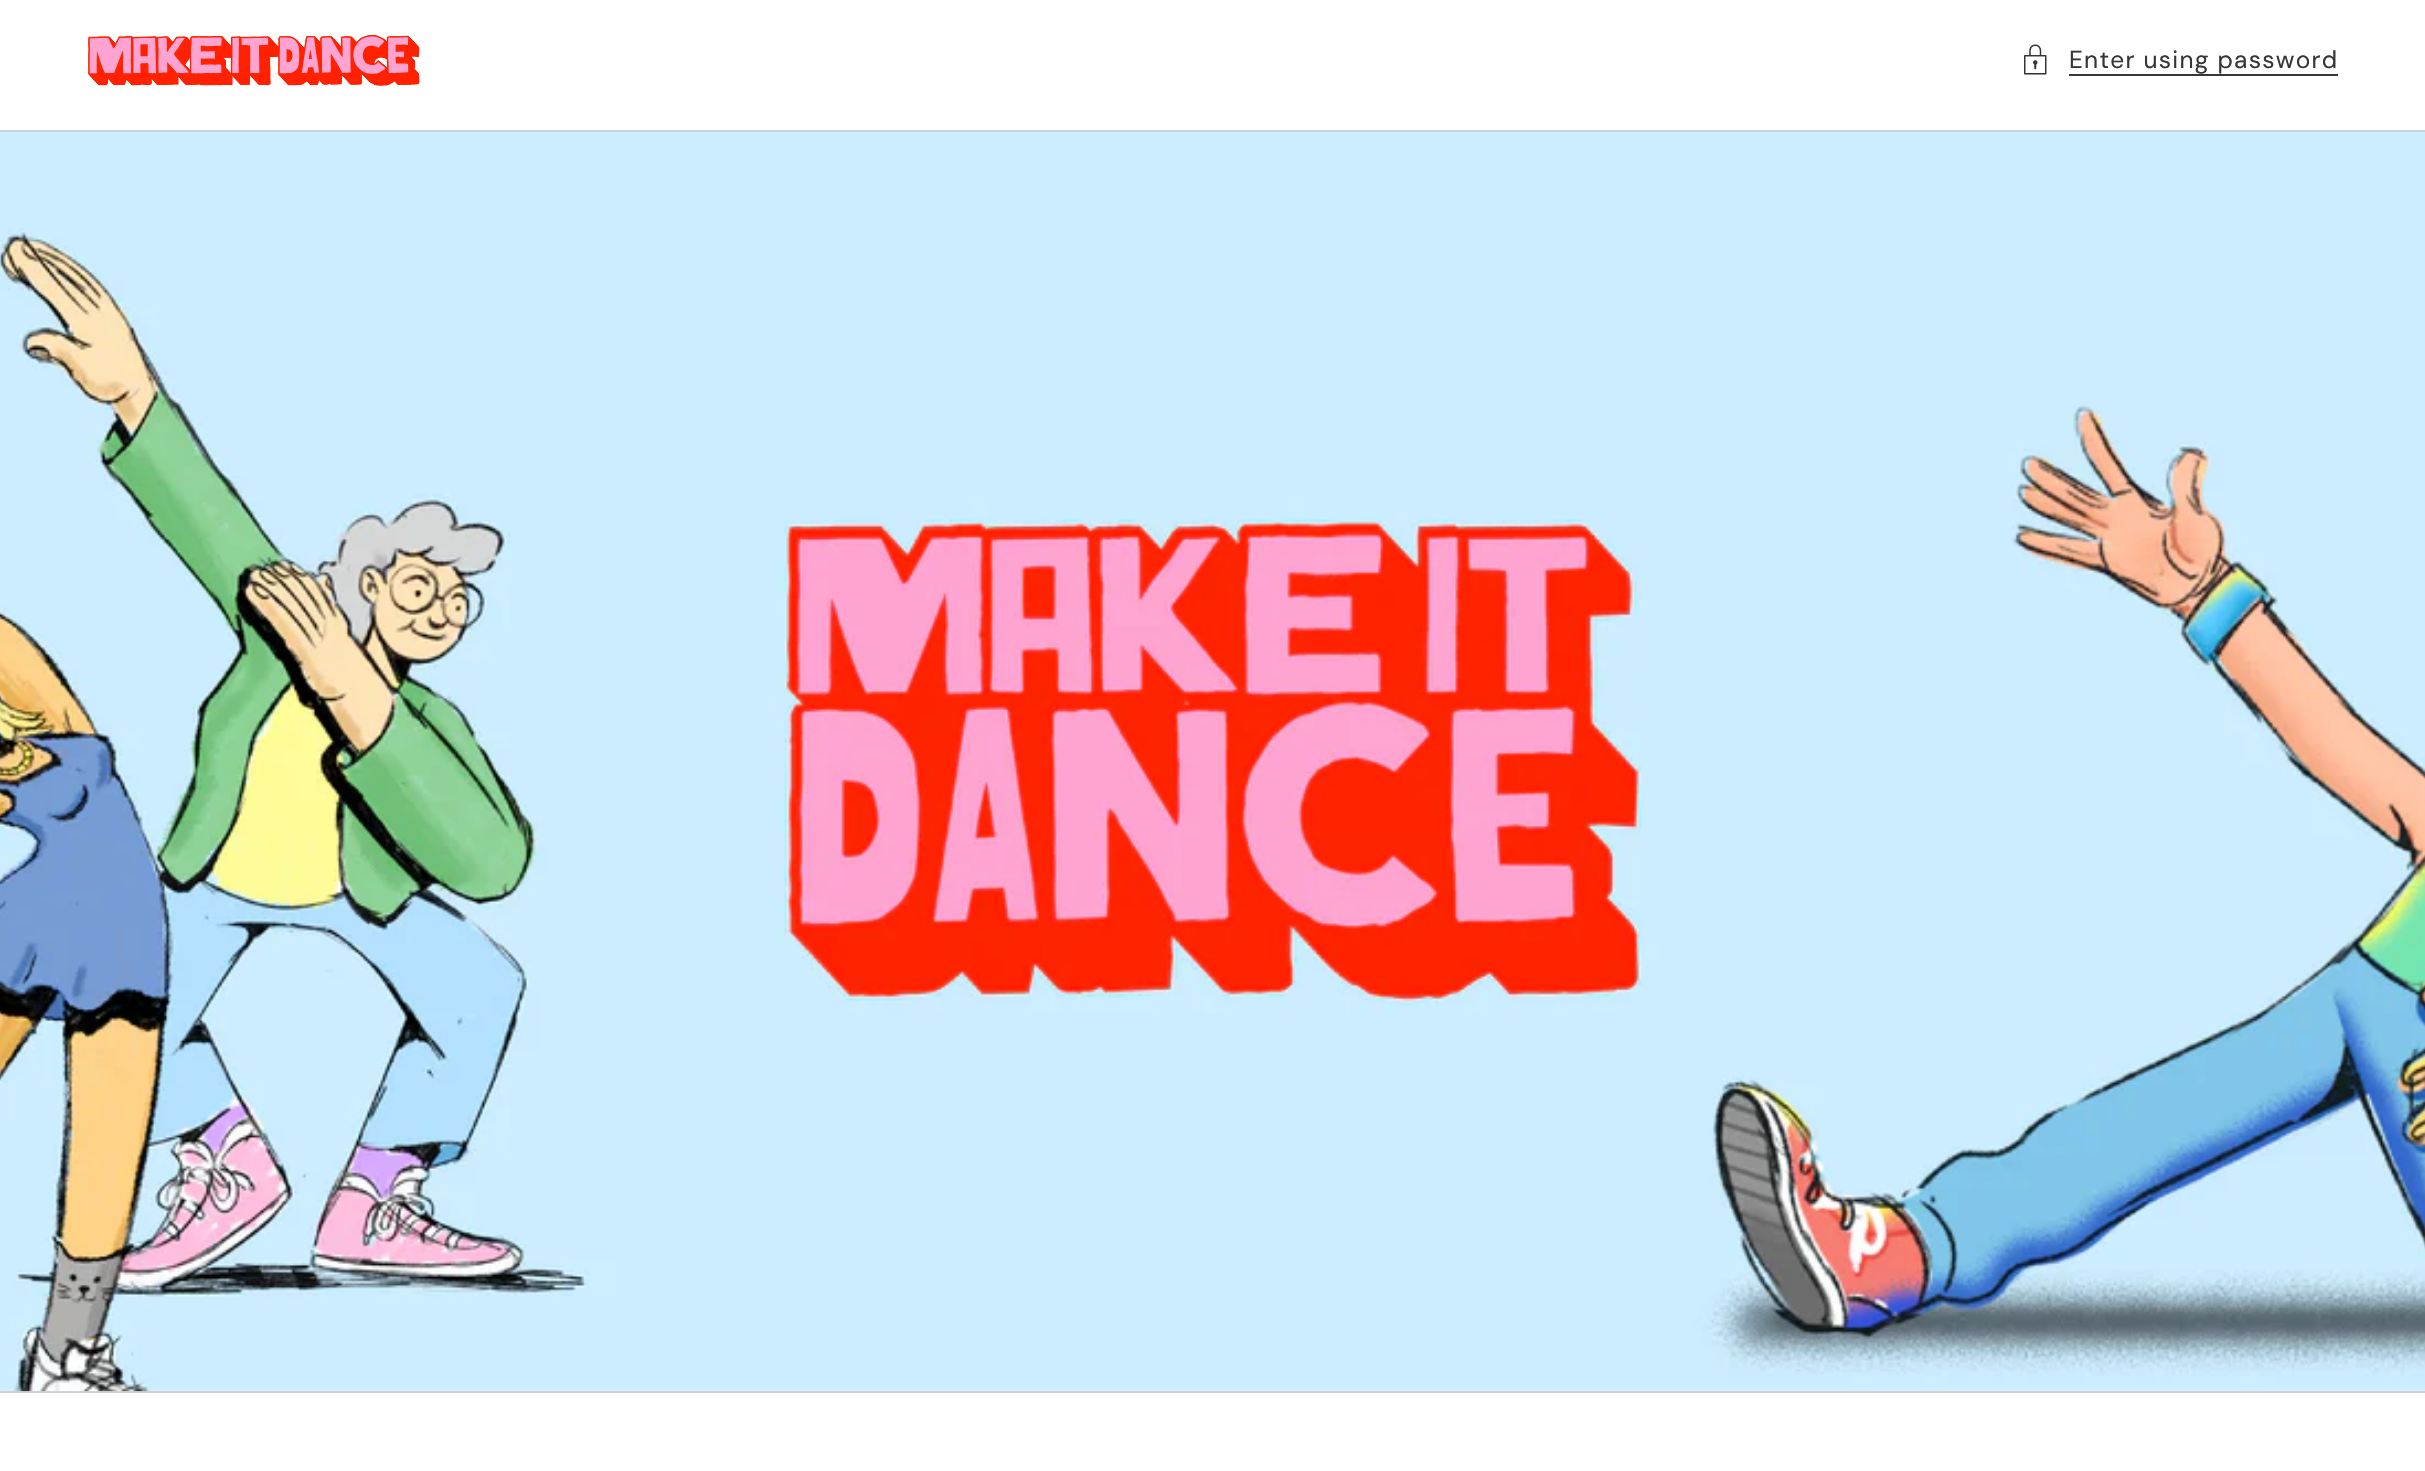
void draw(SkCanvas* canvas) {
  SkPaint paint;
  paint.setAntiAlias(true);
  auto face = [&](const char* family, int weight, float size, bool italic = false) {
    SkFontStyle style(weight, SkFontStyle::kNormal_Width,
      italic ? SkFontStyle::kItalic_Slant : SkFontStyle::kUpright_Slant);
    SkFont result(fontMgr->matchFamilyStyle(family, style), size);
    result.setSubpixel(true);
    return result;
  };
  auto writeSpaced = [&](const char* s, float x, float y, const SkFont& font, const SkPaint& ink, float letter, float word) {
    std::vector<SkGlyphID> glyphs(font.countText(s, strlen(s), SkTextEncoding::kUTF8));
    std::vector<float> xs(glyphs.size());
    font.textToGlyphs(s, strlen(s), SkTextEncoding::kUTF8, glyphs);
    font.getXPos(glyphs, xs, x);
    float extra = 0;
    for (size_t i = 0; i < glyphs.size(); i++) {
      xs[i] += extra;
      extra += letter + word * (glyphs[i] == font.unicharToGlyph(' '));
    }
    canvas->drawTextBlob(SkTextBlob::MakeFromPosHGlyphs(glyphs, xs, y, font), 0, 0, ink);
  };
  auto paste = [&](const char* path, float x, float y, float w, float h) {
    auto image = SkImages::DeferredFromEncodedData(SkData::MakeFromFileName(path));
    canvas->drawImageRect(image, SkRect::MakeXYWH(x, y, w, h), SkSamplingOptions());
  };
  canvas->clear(0xffffffff);
  paste("img/1.png", 88, 35, 332, 51);
  paste("img/2.png", 2024, 44, 23, 31);
  {
    const struct { float x, y, w, h; SkColor color; } items[] = {
      {2069, 74, 269, 2, 0xff363636},
      {0, 130, 2425, 1, 0xffd0d0d0},
      {0, 131, 2425, 1, 0xffbdbdbd},
      {0, 1391, 2425, 2, 0xffd0d0d0},
    };
    for (auto [x, y, w, h, color] : items) {
      paint.setColor(color);
      canvas->drawRect(SkRect::MakeXYWH(x, y, w, h), paint);
    }
  }
  paste("img/3.png", 0, 131, 2425, 1261);
  auto f0 = face("DM Sans", 400, 24.5f);
  paint.setColor(0xff363636);
  writeSpaced("Enter using password", 2069, 68, f0, paint, 1.25f, 0);
}
